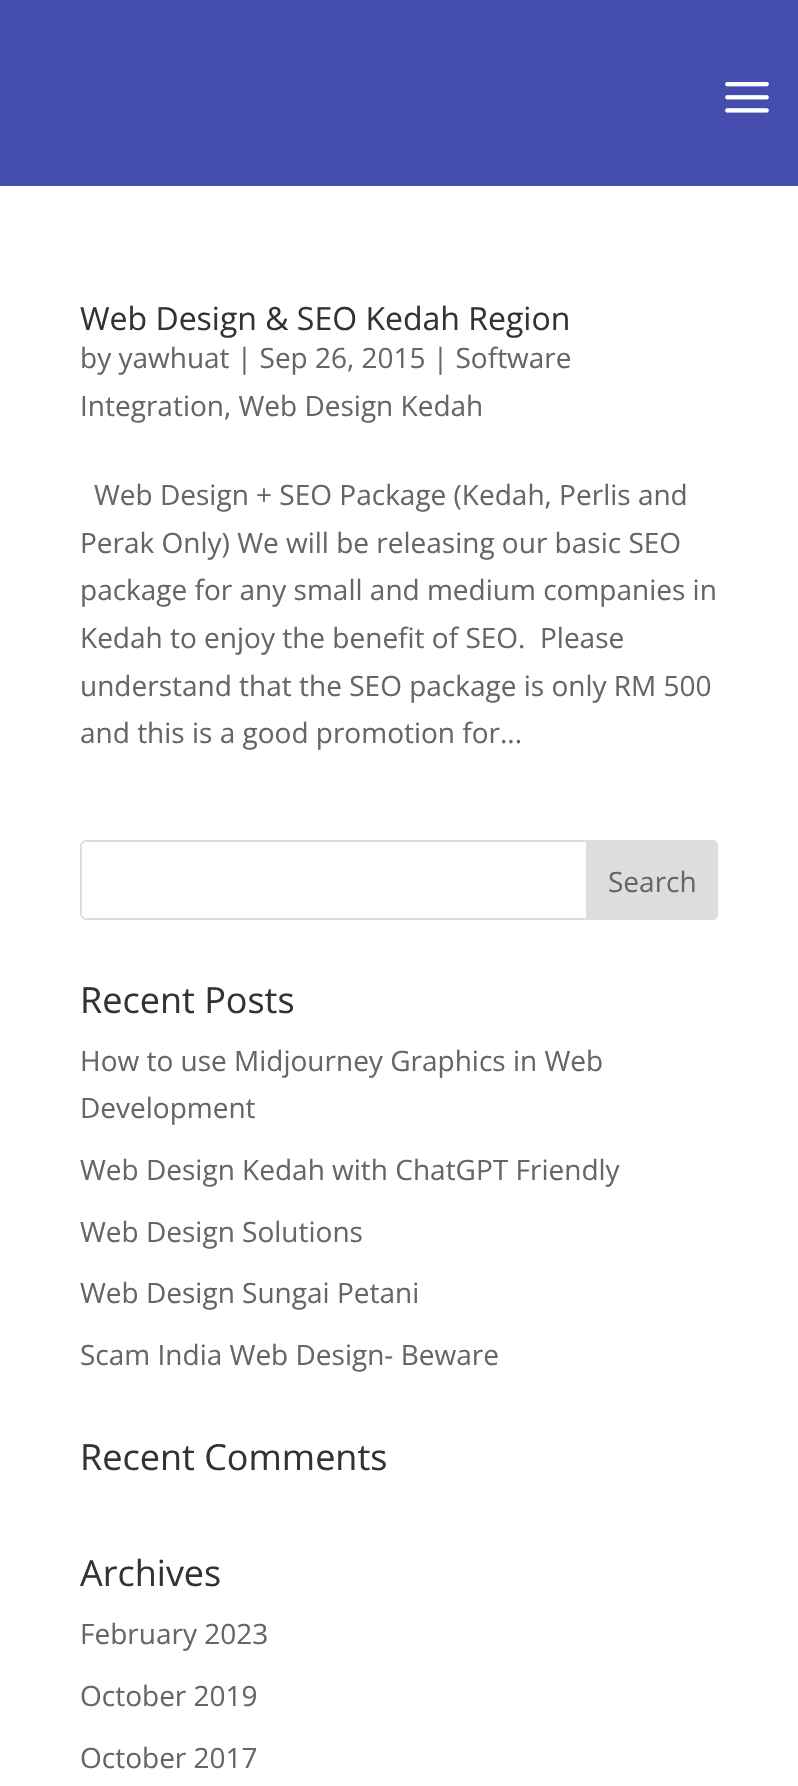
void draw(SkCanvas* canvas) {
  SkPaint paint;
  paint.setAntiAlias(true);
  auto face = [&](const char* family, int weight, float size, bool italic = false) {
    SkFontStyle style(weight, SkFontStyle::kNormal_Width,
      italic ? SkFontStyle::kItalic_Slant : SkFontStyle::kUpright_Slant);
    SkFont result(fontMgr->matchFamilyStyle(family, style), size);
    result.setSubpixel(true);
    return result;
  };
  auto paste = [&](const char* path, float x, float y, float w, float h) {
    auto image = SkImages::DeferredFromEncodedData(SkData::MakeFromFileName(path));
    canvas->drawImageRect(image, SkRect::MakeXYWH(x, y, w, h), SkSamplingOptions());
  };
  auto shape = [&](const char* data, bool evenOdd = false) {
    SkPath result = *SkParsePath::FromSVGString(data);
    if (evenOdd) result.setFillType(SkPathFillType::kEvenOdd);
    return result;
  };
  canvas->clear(0xffffffff);
  paint.setColor(0xff444dad);
  canvas->drawRect(SkRect::MakeXYWH(0, 0, 798, 186), paint);
  paste("img/1.png", 725, 82, 44, 31);
  paint.setStroke(true);
  paint.setStrokeWidth(2);
  paint.setColor(0xffdddddd);
  canvas->drawRoundRect(SkRect::MakeXYWH(81, 841, 636, 78), 5, 5, paint);
  paint.setStroke(false);
  canvas->drawPath(shape("M587 841H712C715 841 717 843 717 846V914C717 917 715 919 712 919H587Z"), paint);
  paint.setStroke(true);
  canvas->drawPath(shape("M587 841H712C715 841 717 843 717 846V914C717 917 715 919 712 919H587Z"), paint);
  auto f0 = face("Open Sans", 400, 32);
  paint.setStroke(false);
  paint.setColor(0xff333333);
  canvas->drawString("Web Design & SEO Kedah Region", 80, 330, f0, paint);
  auto f1 = face("Open Sans", 400, 28);
  paint.setColor(0xff666666);
  {
    const struct { const char* s; float x, y; } items[] = {
      {"by yawhuat | Sep 26, 2015 | Software", 80, 368},
      {"Integration, Web Design Kedah", 80, 416},
      {"Web Design + SEO Package (Kedah, Perlis and", 94, 505},
      {"Perak Only) We will be releasing our basic SEO", 80, 553},
      {"package for any small and medium companies in", 80, 600},
      {"Kedah to enjoy the benefit of SEO.  Please", 80, 648},
      {"understand that the SEO package is only RM 500", 80, 696},
      {"and this is a good promotion for...", 80, 743},
      {"Search", 608, 892},
    };
    for (auto [s, x, y] : items) {
      canvas->drawString(s, x, y, f1, paint);
    }
  }
  auto f2 = face("Open Sans", 400, 36);
  paint.setColor(0xff333333);
  canvas->drawString("Recent Posts", 80, 1013, f2, paint);
  paint.setColor(0xff666666);
  {
    const struct { const char* s; float x, y; } items[] = {
      {"How to use Midjourney Graphics in Web", 80, 1071},
      {"Development", 80, 1118},
      {"Web Design Kedah with ChatGPT Friendly", 80, 1180},
      {"Web Design Solutions", 80, 1242},
      {"Web Design Sungai Petani", 80, 1303},
      {"Scam India Web Design- Beware", 80, 1365},
    };
    for (auto [s, x, y] : items) {
      canvas->drawString(s, x, y, f1, paint);
    }
  }
  paint.setColor(0xff333333);
  canvas->drawString("Recent Comments", 80, 1470, f2, paint);
  canvas->drawString("Archives", 80, 1586, f2, paint);
  paint.setColor(0xff666666);
  {
    const struct { const char* s; float x, y; } items[] = {
      {"February 2023", 80, 1644},
      {"October 2019", 80, 1706},
      {"October 2017", 80, 1768},
    };
    for (auto [s, x, y] : items) {
      canvas->drawString(s, x, y, f1, paint);
    }
  }
}
